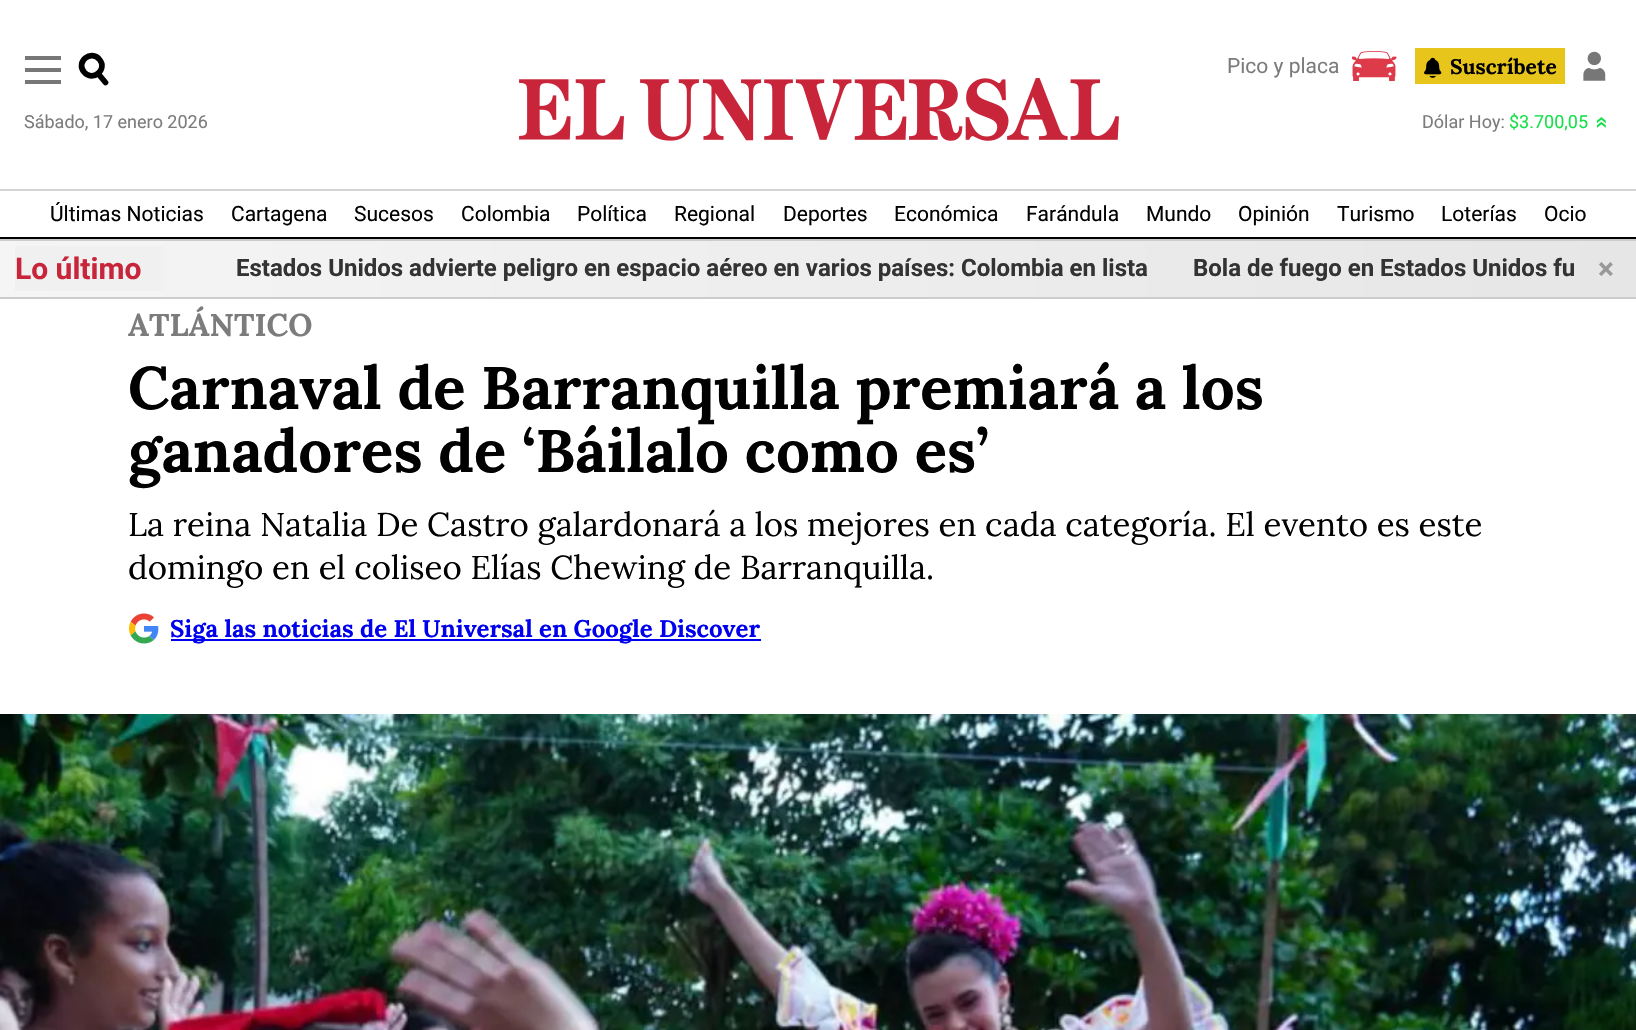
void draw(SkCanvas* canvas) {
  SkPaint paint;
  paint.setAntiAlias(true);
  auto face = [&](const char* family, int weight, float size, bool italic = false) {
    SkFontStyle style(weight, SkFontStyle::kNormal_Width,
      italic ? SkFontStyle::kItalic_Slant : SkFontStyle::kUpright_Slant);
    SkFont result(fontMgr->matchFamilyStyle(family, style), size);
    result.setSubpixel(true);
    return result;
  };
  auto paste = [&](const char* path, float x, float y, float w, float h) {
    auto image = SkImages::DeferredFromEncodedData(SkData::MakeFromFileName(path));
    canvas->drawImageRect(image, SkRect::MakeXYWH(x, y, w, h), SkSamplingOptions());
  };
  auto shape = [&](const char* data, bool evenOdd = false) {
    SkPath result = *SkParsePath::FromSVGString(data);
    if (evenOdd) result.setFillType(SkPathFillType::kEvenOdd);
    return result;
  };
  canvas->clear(0xffffffff);
  {
    const struct { float x, y, w, h; SkColor color; } items[] = {
      {0, 189, 1636, 2, 0xffd4d4d4},
      {25, 56, 36, 4, 0xff777777},
      {25, 68, 36, 4, 0xff777777},
      {25, 80, 36, 4, 0xff777777},
    };
    for (auto [x, y, w, h, color] : items) {
      paint.setColor(color);
      canvas->drawRect(SkRect::MakeXYWH(x, y, w, h), paint);
    }
  }
  paint.setStroke(true);
  paint.setStrokeWidth(5.7f);
  paint.setColor(0xff000000);
  canvas->drawPath(shape("M99.5 59.5C108 69.5 92.5 82.5 84 72C75.5 62 91 49 99.5 59.5Z"), paint);
  paint.setStrokeCap(SkPaint::kRound_Cap);
  canvas->drawPath(shape("M98 73.5L105.5 82.5"), paint);
  paste("img/1.png", 1352, 51, 45, 30);
  paint.setStroke(false);
  paint.setColor(0xffe8c51a);
  canvas->drawRect(SkRect::MakeXYWH(1415, 48, 150, 36), paint);
  paste("img/2.png", 1424, 57, 18, 21);
  paste("img/3.png", 1583, 51, 23, 30);
  paste("img/4.png", 519, 78, 600, 63);
  paste("img/5.png", 1596, 117, 10, 11);
  paint.setColor(0xff000000);
  canvas->drawRect(SkRect::MakeXYWH(0, 237, 1636, 2), paint);
  {
    const SkColor colors[] = {0xfff5f5f5, 0xffe6e6e6};
    const float stops[] = {0, 1};
    const SkPoint ends[] = {{0, 269}, {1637, 268}};
    paint.setShader(SkGradientShader::MakeLinear(ends, colors, stops, 2, SkTileMode::kClamp));
    paint.setAlpha(255);
  }
  canvas->drawRect(SkRect::MakeXYWH(0, 241, 1636, 56), paint);
  paint.setShader(nullptr);
  paint.setColor(0xffcccccc);
  canvas->drawRect(SkRect::MakeXYWH(0, 239, 1636, 2), paint);
  canvas->drawRect(SkRect::MakeXYWH(0, 297, 1636, 2), paint);
  {
    const SkColor colors[] = {0xfff0f0f0, 0xfff4f4f4};
    const float stops[] = {0.8f, 1};
    const SkPoint ends[] = {{-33, 269}, {201, 269}};
    paint.setShader(SkGradientShader::MakeLinear(ends, colors, stops, 2, SkTileMode::kClamp));
    paint.setAlpha(255);
  }
  canvas->drawRect(SkRect::MakeXYWH(15, 246, 149, 45), paint);
  paste("img/6.png", 129, 613, 30, 31);
  paint.setShader(nullptr);
  paint.setColor(0xff0000ee);
  canvas->drawRect(SkRect::MakeXYWH(171, 639, 590, 2), paint);
  paste("img/7.png", 0, 714, 1636, 316);
  auto f0 = face("Roboto", 400, 21);
  paint.setColor(0xff7c7c7c);
  canvas->drawString("Pico y placa", 1227, 73, f0, paint);
  auto f1 = face("Lora", 700, 21);
  paint.setColor(0xff010101);
  canvas->drawString("Suscríbete", 1450, 74, f1, paint);
  auto f2 = face("Roboto", 400, 18);
  paint.setColor(0xff7c7c7c);
  canvas->drawString("Sábado, 17 enero 2026", 24, 128, f2, paint);
  canvas->drawString("Dólar Hoy:", 1422, 128, f2, paint);
  paint.setColor(0xff17e04b);
  canvas->drawString("$3.700,05", 1509, 128, f2, paint);
  paint.setColor(0xff010101);
  {
    const struct { const char* s; float x, y; } items[] = {
      {"Últimas Noticias", 50, 221},
      {"Cartagena", 231, 221},
      {"Sucesos", 354, 221},
      {"Colombia", 461, 221},
      {"Política", 577, 221},
      {"Regional", 674, 221},
      {"Deportes", 783, 221},
      {"Económica", 894, 221},
      {"Farándula", 1026, 221},
      {"Mundo", 1146, 221},
      {"Opinión", 1238, 221},
      {"Turismo", 1337, 221},
      {"Loterías", 1441, 221},
      {"Ocio", 1544, 221},
    };
    for (auto [s, x, y] : items) {
      canvas->drawString(s, x, y, f0, paint);
    }
  }
  auto f3 = face("Roboto", 700, 30);
  paint.setColor(0xffc8243a);
  canvas->drawString("Lo último", 15, 279, f3, paint);
  auto f4 = face("Roboto", 700, 24);
  paint.setColor(0xff333333);
  canvas->drawString("Estados Unidos advierte peligro en espacio aéreo en varios países: Colombia en lista", 236, 276, f4, paint);
  canvas->drawString("Bola de fuego en Estados Unidos fu", 1193, 276, f4, paint);
  paint.setColor(0xff999999);
  canvas->drawString("×", 1598, 279, f3, paint);
  auto f5 = face("Lora", 700, 31.5f);
  paint.setColor(0xff7c7c7c);
  canvas->drawString("ATLÁNTICO", 128, 336, f5, paint);
  auto f6 = face("Lora", 700, 60);
  paint.setColor(0xff010101);
  canvas->drawString("Carnaval de Barranquilla premiará a los", 128, 409, f6, paint);
  canvas->drawString("ganadores de ‘Báilalo como es’", 128, 472, f6, paint);
  auto f7 = face("Lora", 400, 33);
  canvas->drawString("La reina Natalia De Castro galardonará a los mejores en cada categoría. El evento es este", 128, 536, f7, paint);
  canvas->drawString("domingo en el coliseo Elías Chewing de Barranquilla.", 128, 579, f7, paint);
  auto f8 = face("Lora", 700, 24);
  paint.setColor(0xff0000ee);
  canvas->drawString("Siga las noticias de El Universal en Google Discover", 170, 637, f8, paint);
}
